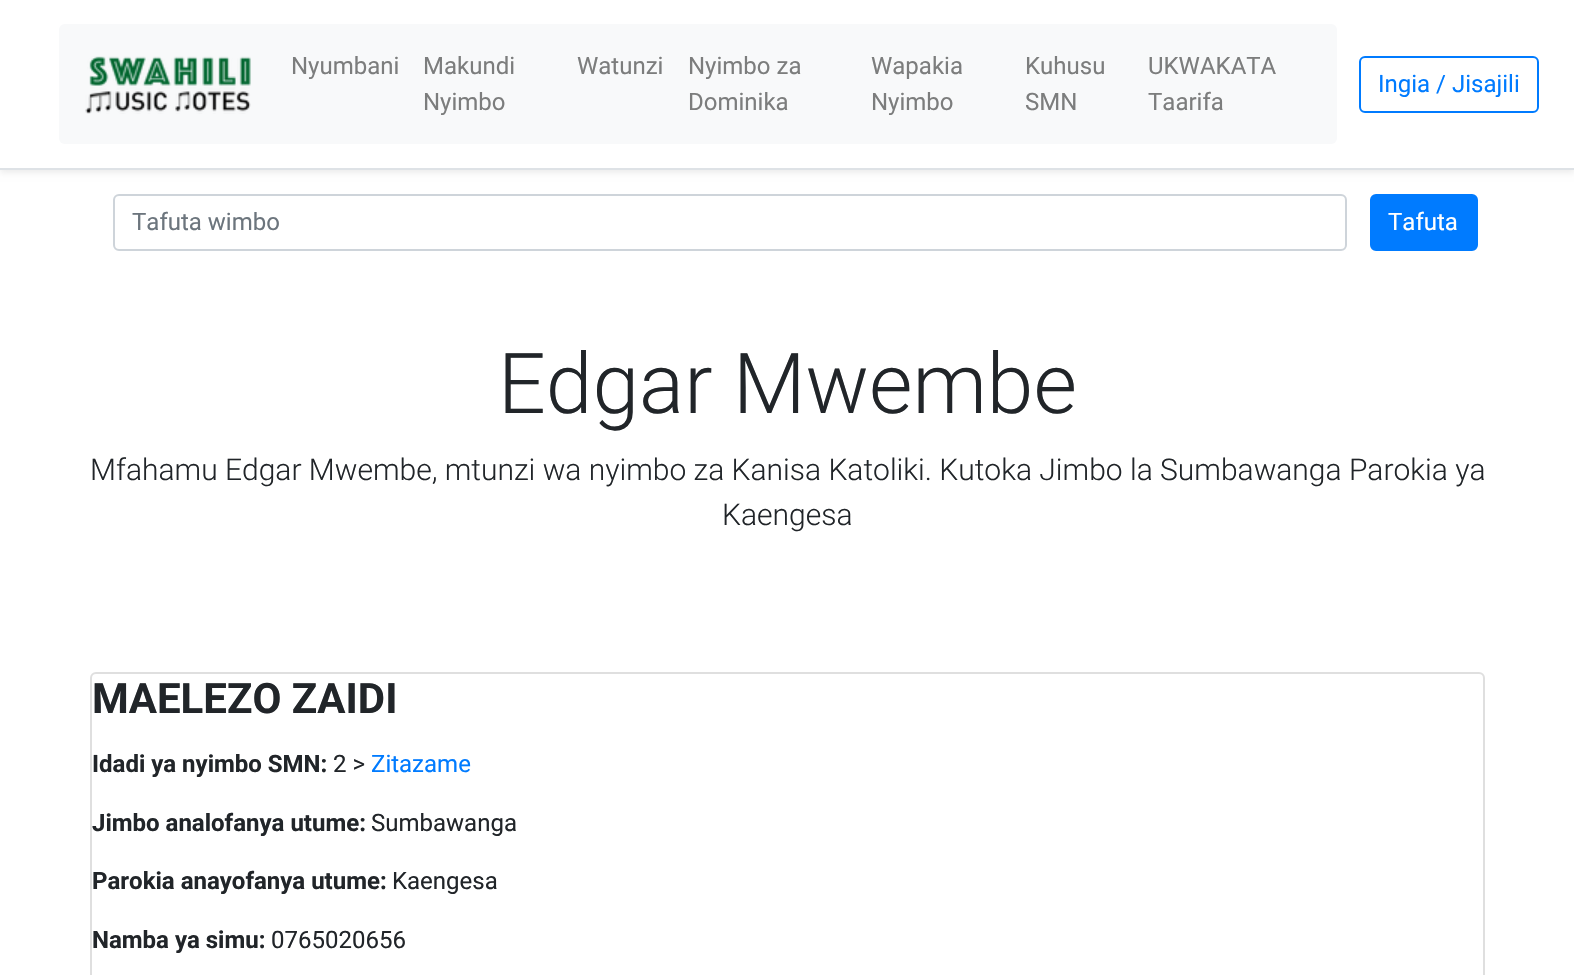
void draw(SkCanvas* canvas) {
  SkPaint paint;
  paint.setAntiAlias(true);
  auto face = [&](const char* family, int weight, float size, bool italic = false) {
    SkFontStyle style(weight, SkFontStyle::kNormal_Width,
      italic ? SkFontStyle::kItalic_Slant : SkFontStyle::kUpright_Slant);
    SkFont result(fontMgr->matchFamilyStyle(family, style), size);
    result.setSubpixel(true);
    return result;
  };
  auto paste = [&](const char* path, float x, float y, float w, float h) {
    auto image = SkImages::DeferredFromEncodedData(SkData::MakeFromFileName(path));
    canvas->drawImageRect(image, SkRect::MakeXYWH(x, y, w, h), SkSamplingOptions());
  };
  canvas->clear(0xffffffff);
  paint.setColor(0x12000000);
  paint.setMaskFilter(SkMaskFilter::MakeBlur(kNormal_SkBlurStyle, 3));
  canvas->drawRect(SkRect::MakeXYWH(0, 3, 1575, 170), paint);
  paint.setMaskFilter(nullptr);
  paint.setColor(0xffffffff);
  canvas->drawRect(SkRect::MakeXYWH(0, 0, 1574, 168), paint);
  paint.setColor(0xffdee2e6);
  canvas->drawRect(SkRect::MakeXYWH(0, 168, 1574, 2), paint);
  paint.setColor(0xfff8f9fa);
  canvas->drawRoundRect(SkRect::MakeXYWH(59, 24, 1278, 120), 6, 6, paint);
  paste("img/1.png", 85, 56, 166, 58);
  paint.setStroke(true);
  paint.setStrokeWidth(2);
  paint.setColor(0xff007bff);
  canvas->drawRoundRect(SkRect::MakeXYWH(1360, 57, 178, 55), 5, 5, paint);
  paint.setColor(0xffced4da);
  canvas->drawRoundRect(SkRect::MakeXYWH(114, 195, 1232, 55), 5, 5, paint);
  paint.setStroke(false);
  paint.setColor(0xff007bff);
  canvas->drawRoundRect(SkRect::MakeXYWH(1371, 195, 106, 55), 5, 5, paint);
  paint.setStroke(true);
  canvas->drawRoundRect(SkRect::MakeXYWH(1371, 195, 106, 55), 5, 5, paint);
  paint.setColor(0xffdfdfdf);
  canvas->drawRoundRect(SkRect::MakeXYWH(91, 673, 1393, 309), 5, 5, paint);
  auto f0 = face("Roboto", 400, 24);
  paint.setStroke(false);
  paint.setColor(0xff7c7d7d);
  {
    const struct { const char* s; float x, y; } items[] = {
      {"Nyumbani", 291, 74},
      {"Makundi", 423, 74},
      {"Nyimbo", 423, 110},
      {"Watunzi", 577, 74},
      {"Nyimbo za", 688, 74},
      {"Dominika", 688, 110},
      {"Wapakia", 871, 74},
      {"Nyimbo", 871, 110},
      {"Kuhusu", 1025, 74},
      {"SMN", 1025, 110},
      {"UKWAKATA", 1148, 74},
      {"Taarifa", 1148, 110},
    };
    for (auto [s, x, y] : items) {
      canvas->drawString(s, x, y, f0, paint);
    }
  }
  paint.setColor(0xff007bff);
  canvas->drawString("Ingia / Jisajili", 1378, 92, f0, paint);
  paint.setColor(0xff6c757d);
  canvas->drawString("Tafuta wimbo", 132, 230, f0, paint);
  paint.setColor(0xffffffff);
  canvas->drawString("Tafuta", 1388, 230, f0, paint);
  auto f1 = face("Roboto", 300, 84);
  paint.setColor(0xff212529);
  canvas->drawString("Edgar Mwembe", 498, 413, f1, paint);
  auto f2 = face("Roboto", 300, 30);
  canvas->drawString("Mfahamu Edgar Mwembe, mtunzi wa nyimbo za Kanisa Katoliki. Kutoka Jimbo la Sumbawanga Parokia ya", 90, 480, f2, paint);
  canvas->drawString("Kaengesa", 722, 525, f2, paint);
  auto f3 = face("Roboto", 700, 42);
  canvas->drawString("MAELEZO ZAIDI", 92, 713, f3, paint);
  auto f4 = face("Roboto", 700, 24);
  canvas->drawString("Idadi ya nyimbo SMN:", 92, 772, f4, paint);
  canvas->drawString("2 >", 333, 772, f0, paint);
  paint.setColor(0xff007bff);
  canvas->drawString("Zitazame", 371, 772, f0, paint);
  paint.setColor(0xff212529);
  canvas->drawString("Jimbo analofanya utume:", 92, 831, f4, paint);
  canvas->drawString("Sumbawanga", 371, 831, f0, paint);
  canvas->drawString("Parokia anayofanya utume:", 92, 889, f4, paint);
  canvas->drawString("Kaengesa", 392, 889, f0, paint);
  canvas->drawString("Namba ya simu:", 92, 948, f4, paint);
  canvas->drawString("0765020656", 271, 948, f0, paint);
}
